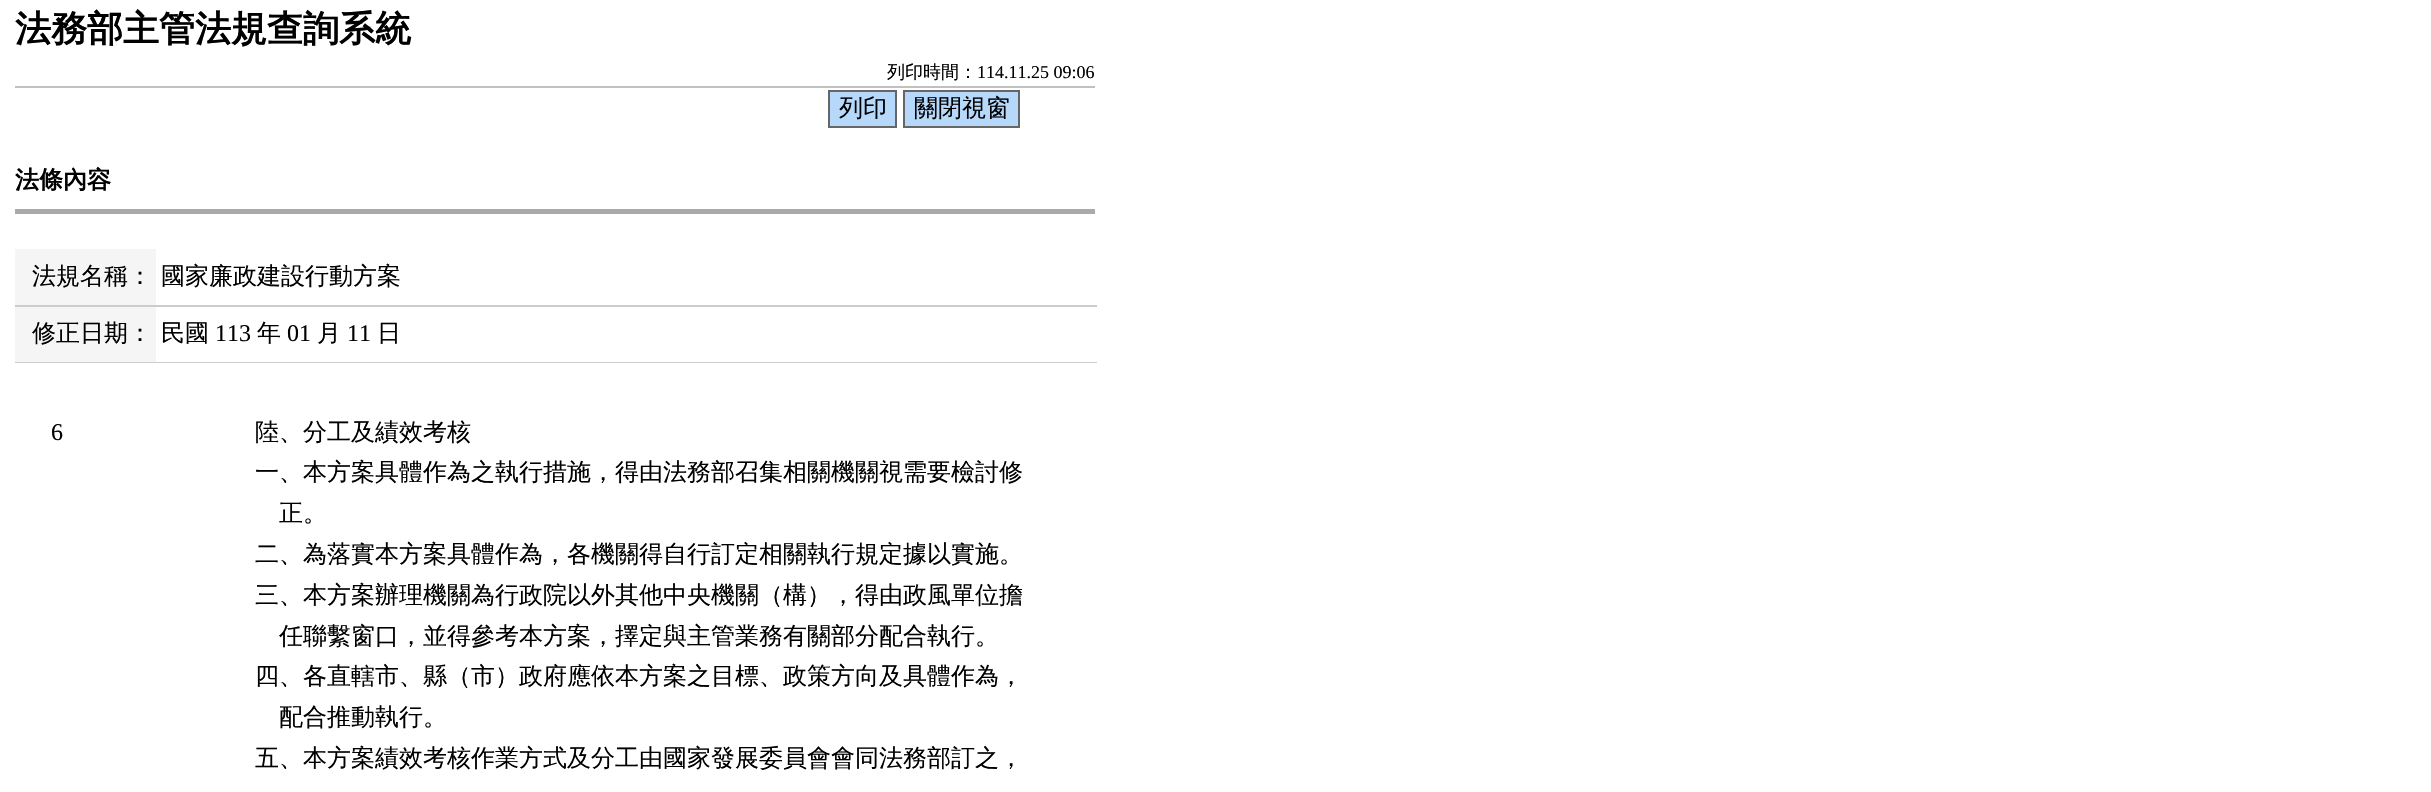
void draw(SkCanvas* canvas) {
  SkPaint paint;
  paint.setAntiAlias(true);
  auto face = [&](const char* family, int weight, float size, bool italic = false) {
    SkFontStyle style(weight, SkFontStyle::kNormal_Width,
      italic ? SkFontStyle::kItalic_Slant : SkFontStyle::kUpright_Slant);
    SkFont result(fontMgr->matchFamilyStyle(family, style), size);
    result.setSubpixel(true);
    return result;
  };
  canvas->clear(0xffffffff);
  paint.setColor(0xffc0c0c0);
  canvas->drawRect(SkRect::MakeXYWH(15, 86, 1080, 2), paint);
  paint.setColor(0xffb5d8fb);
  canvas->drawRect(SkRect::MakeXYWH(829, 91, 67, 36), paint);
  paint.setStroke(true);
  paint.setStrokeWidth(2);
  paint.setColor(0xff666666);
  canvas->drawRect(SkRect::MakeXYWH(829, 91, 67, 36), paint);
  paint.setStroke(false);
  paint.setColor(0xffb5d8fb);
  canvas->drawRect(SkRect::MakeXYWH(904, 91, 115, 36), paint);
  paint.setStroke(true);
  paint.setColor(0xff666666);
  canvas->drawRect(SkRect::MakeXYWH(904, 91, 115, 36), paint);
  paint.setStroke(false);
  {
    const struct { float x, y, w, h; SkColor color; } items[] = {
      {15, 209, 1080, 5, 0xffaaaaaa},
      {15, 249, 141, 56, 0xfff5f5f5},
      {15, 305, 1082, 2, 0xffcccccc},
      {15, 307, 141, 55, 0xfff5f5f5},
      {15, 362, 1082, 1, 0xffcccccc},
    };
    for (auto [x, y, w, h, color] : items) {
      paint.setColor(color);
      canvas->drawRect(SkRect::MakeXYWH(x, y, w, h), paint);
    }
  }
  auto f0 = face("WenQuanYi Zen Hei", 700, 36);
  paint.setColor(0xff000000);
  canvas->drawString("法務部主管法規查詢系統", 15, 41, f0, paint);
  auto f1 = face("WenQuanYi Zen Hei", 500, 18);
  canvas->drawString("列印時間：", 887, 78, f1, paint);
  auto f2 = face("Liberation Serif", 400, 18);
  canvas->drawString("114.11.25 09:06", 977, 78, f2, paint);
  auto f3 = face("WenQuanYi Zen Hei", 500, 24);
  canvas->drawString("列印", 839, 116, f3, paint);
  canvas->drawString("關閉視窗", 914, 116, f3, paint);
  auto f4 = face("WenQuanYi Zen Hei", 700, 24);
  canvas->drawString("法條內容", 15, 188, f4, paint);
  {
    const struct { const char* s; float x, y; } items[] = {
      {"法規名稱：", 32, 284},
      {"國家廉政建設行動方案", 161, 284},
      {"修正日期：", 32, 341},
      {"民國", 161, 341},
    };
    for (auto [s, x, y] : items) {
      canvas->drawString(s, x, y, f3, paint);
    }
  }
  auto f5 = face("Liberation Serif", 400, 24);
  canvas->drawString("113", 215, 341, f5, paint);
  canvas->drawString("年", 257, 341, f3, paint);
  canvas->drawString("01", 287, 341, f5, paint);
  canvas->drawString("月", 317, 341, f3, paint);
  canvas->drawString("11", 347, 341, f5, paint);
  canvas->drawString("日", 377, 341, f3, paint);
  canvas->drawString("6", 51, 440, f5, paint);
  {
    const struct { const char* s; float x, y; } items[] = {
      {"陸、分工及績效考核", 255, 440},
      {"一、本方案具體作為之執行措施，得由法務部召集相關機關視需要檢討修", 255, 480},
      {"正。", 279, 521},
      {"二、為落實本方案具體作為，各機關得自行訂定相關執行規定據以實施。", 255, 562},
      {"三、本方案辦理機關為行政院以外其他中央機關（構），得由政風單位擔", 255, 603},
      {"任聯繫窗口，並得參考本方案，擇定與主管業務有關部分配合執行。", 279, 644},
      {"四、各直轄市、縣（市）政府應依本方案之目標、政策方向及具體作為，", 255, 684},
      {"配合推動執行。", 279, 725},
      {"五、本方案績效考核作業方式及分工由國家發展委員會會同法務部訂之，", 255, 766},
    };
    for (auto [s, x, y] : items) {
      canvas->drawString(s, x, y, f3, paint);
    }
  }
}
